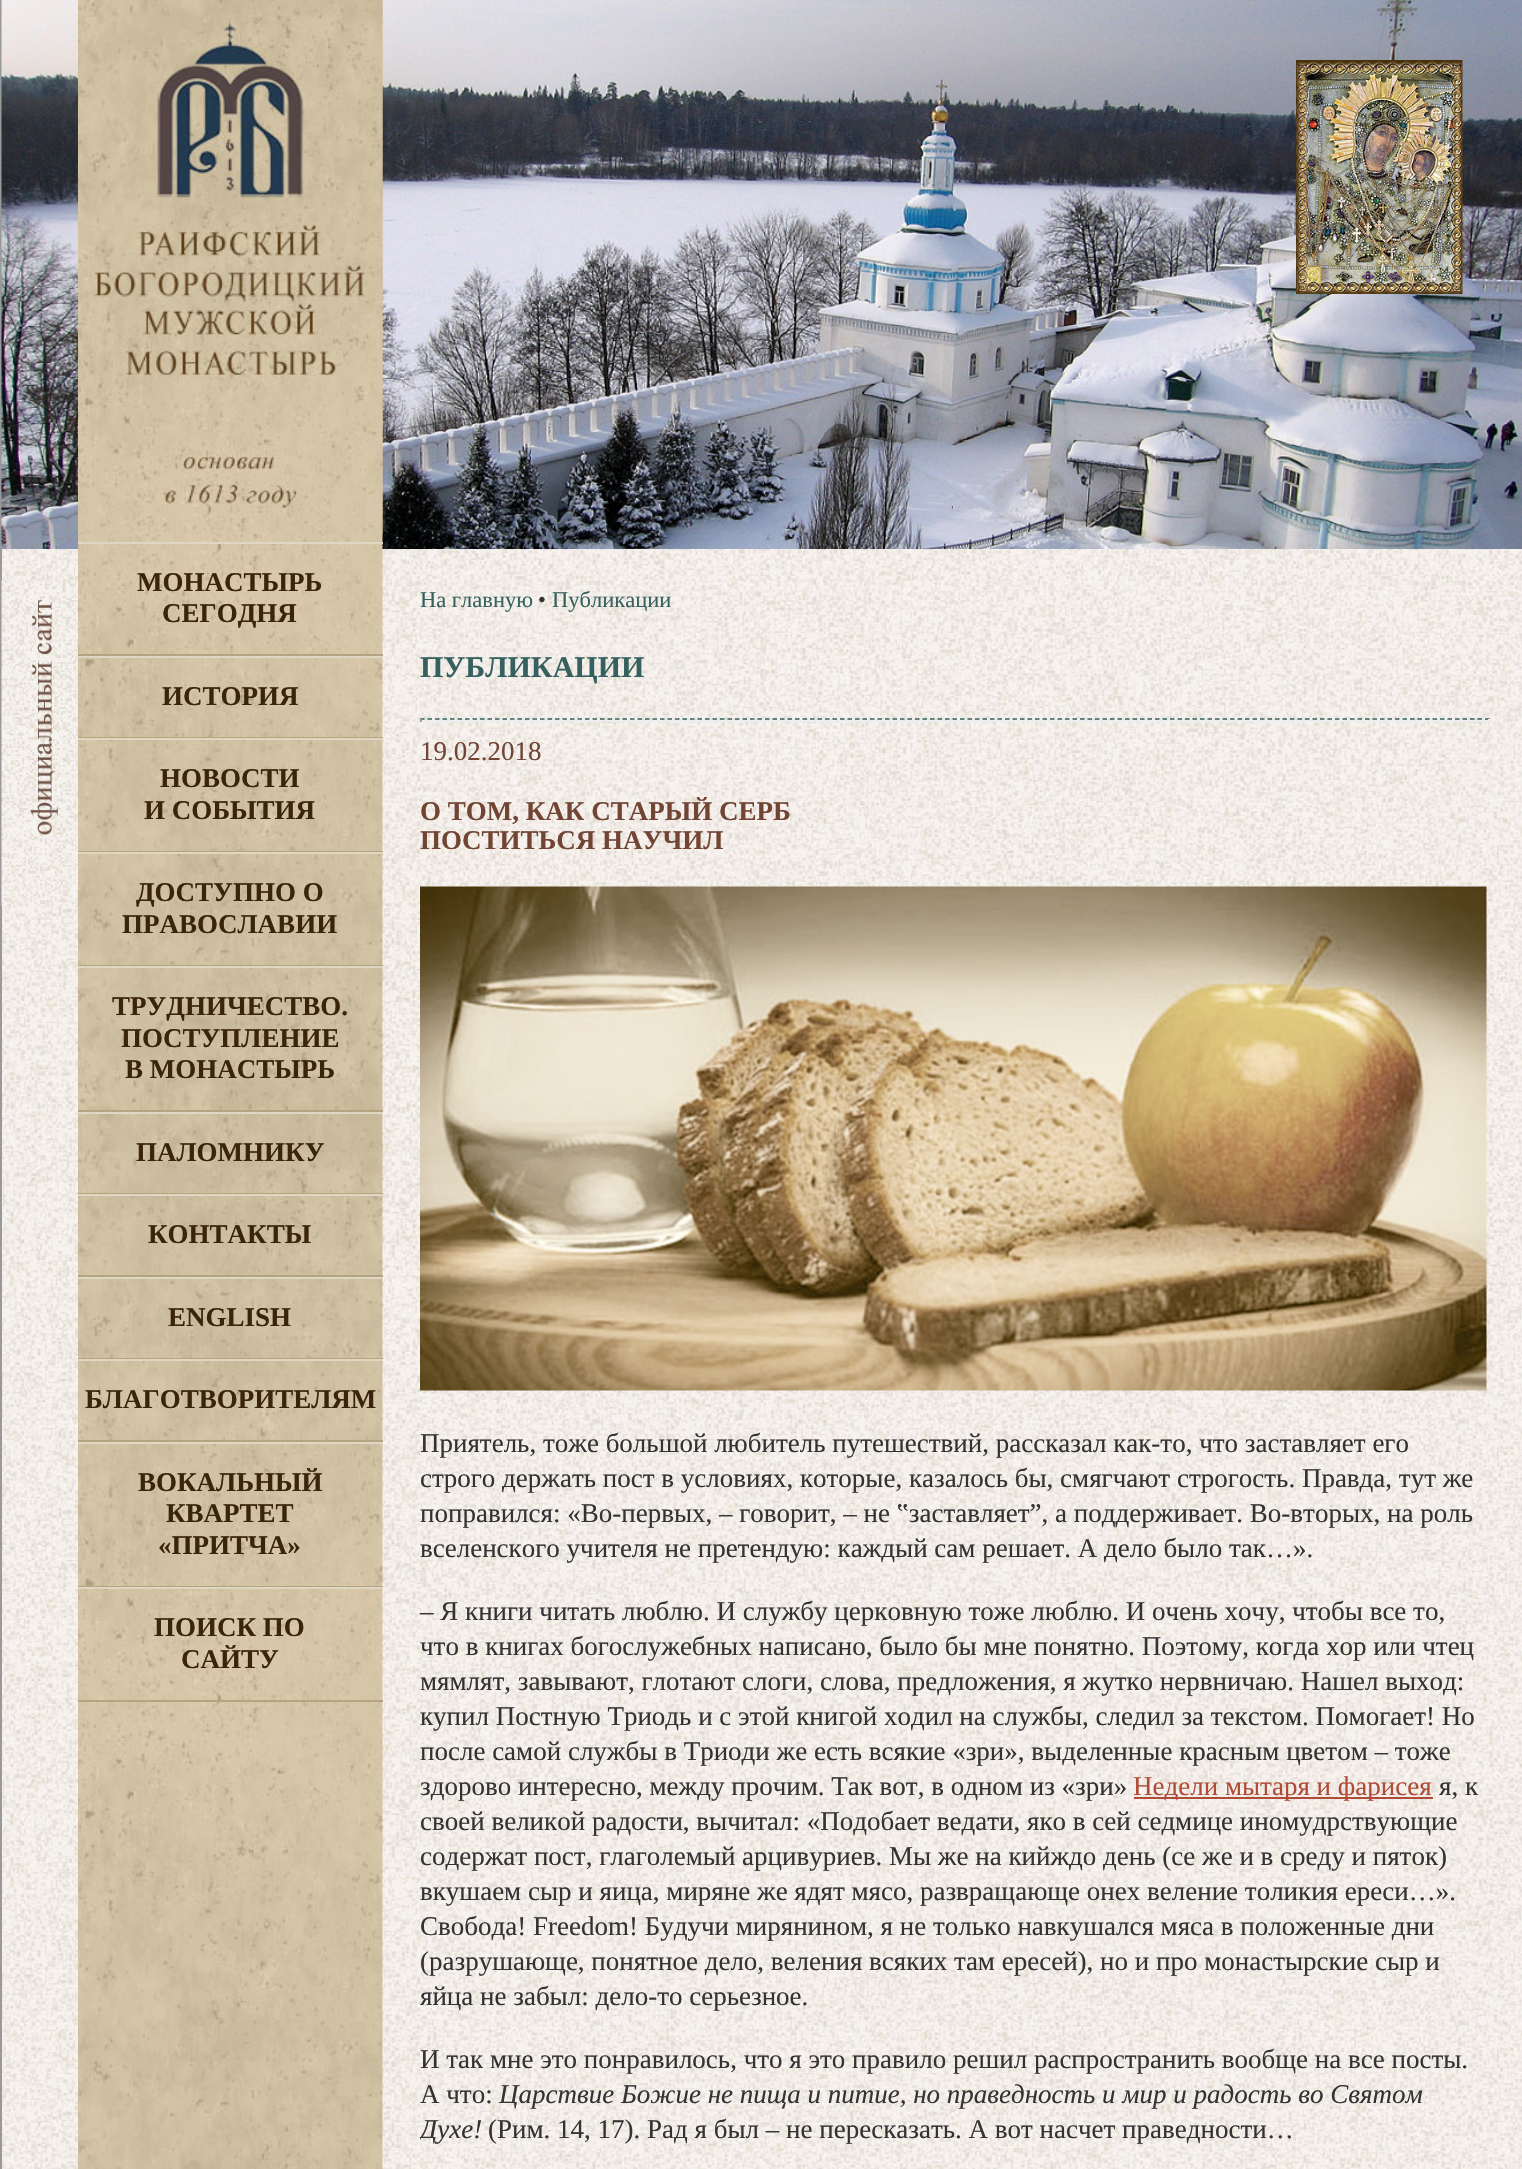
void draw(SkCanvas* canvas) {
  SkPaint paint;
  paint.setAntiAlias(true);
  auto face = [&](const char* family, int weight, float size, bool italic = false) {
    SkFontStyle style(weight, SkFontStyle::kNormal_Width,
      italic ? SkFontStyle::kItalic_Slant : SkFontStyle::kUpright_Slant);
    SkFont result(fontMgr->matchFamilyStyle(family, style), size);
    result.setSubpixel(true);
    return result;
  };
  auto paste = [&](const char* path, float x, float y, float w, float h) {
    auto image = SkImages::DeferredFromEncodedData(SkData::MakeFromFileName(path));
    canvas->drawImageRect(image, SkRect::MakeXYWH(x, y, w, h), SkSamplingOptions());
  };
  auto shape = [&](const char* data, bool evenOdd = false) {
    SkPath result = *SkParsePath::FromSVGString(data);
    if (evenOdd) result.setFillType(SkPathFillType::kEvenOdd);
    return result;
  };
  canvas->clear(0xffffffff);
  paste("img/1.png", 2, 549, 1520, 1620);
  paint.setColor(0xff999999);
  canvas->drawRect(SkRect::MakeXYWH(0, 0, 2, 2169), paint);
  paste("img/2.png", 1, 0, 1521, 549);
  paste("img/3.png", 1296, 60, 167, 234);
  paste("img/4.png", 78, 0, 305, 2169);
  paste("img/5.png", 78, 0, 305, 534);
  {
    const struct { float x, y, w, h; SkColor color; } items[] = {
      {78, 542, 305, 2, 0xffdfd7c2},
      {78, 654, 305, 2, 0xffb5a482},
      {78, 656, 305, 2, 0xffdfd7c2},
      {78, 737, 305, 1, 0xffb5a482},
      {78, 738, 305, 2, 0xffdfd7c2},
      {78, 851, 305, 1, 0xffb5a482},
      {78, 852, 305, 2, 0xffdfd7c2},
      {78, 965, 305, 1, 0xffb5a482},
      {78, 966, 305, 2, 0xffdfd7c2},
      {78, 1110, 305, 2, 0xffb5a482},
      {78, 1112, 305, 2, 0xffdfd7c2},
      {78, 1193, 305, 1, 0xffb5a482},
      {78, 1194, 305, 2, 0xffdfd7c2},
      {78, 1275, 305, 2, 0xffb5a482},
      {78, 1277, 305, 2, 0xffdfd7c2},
      {78, 1358, 305, 1, 0xffb5a482},
      {78, 1359, 305, 2, 0xffdfd7c2},
      {78, 1440, 305, 2, 0xffb5a482},
      {78, 1442, 305, 2, 0xffdfd7c2},
      {78, 1586, 305, 1, 0xffb5a482},
      {78, 1587, 305, 2, 0xffdfd7c2},
      {78, 1700, 305, 2, 0xffb5a482},
    };
    for (auto [x, y, w, h, color] : items) {
      paint.setColor(color);
      canvas->drawRect(SkRect::MakeXYWH(x, y, w, h), paint);
    }
  }
  paste("img/6.png", 1, 580, 76, 326);
  paint.setStroke(true);
  paint.setStrokeWidth(1.5f);
  paint.setColor(0xff36605e);
  paint.setPathEffect(SkDashPathEffect::Make({{4.5f, 3}}, 0));
  canvas->drawPath(shape("M420 719H1489.5"), paint);
  paint.setPathEffect(nullptr);
  paint.setStroke(false);
  {
    const struct { float x, y, w, h; SkColor color; } items[] = {
      {1488, 719, 2, 3, 0xffeeeeee},
      {420, 720, 1070, 2, 0xffeeeeee},
      {420, 719, 2, 3, 0xff9f9f9f},
    };
    for (auto [x, y, w, h, color] : items) {
      paint.setColor(color);
      canvas->drawRect(SkRect::MakeXYWH(x, y, w, h), paint);
    }
  }
  paste("img/7.png", 420, 886, 1067, 505);
  paint.setColor(0xffb04b37);
  canvas->drawRect(SkRect::MakeXYWH(1134, 1797, 299, 2), paint);
  auto f0 = face("Liberation Serif", 700, 27);
  paint.setColor(0xff3a240b);
  {
    const struct { const char* s; float x, y; } items[] = {
      {"МОНАСТЫРЬ", 137, 591},
      {"СЕГОДНЯ", 162, 622},
      {"ИСТОРИЯ", 162, 705},
      {"НОВОСТИ", 160, 787},
      {"И СОБЫТИЯ", 144, 819},
      {"ДОСТУПНО О", 136, 901},
      {"ПРАВОСЛАВИИ", 122, 933},
      {"ТРУДНИЧЕСТВО.", 112, 1015},
      {"ПОСТУПЛЕНИЕ", 121, 1047},
      {"В МОНАСТЫРЬ", 125, 1078},
      {"ПАЛОМНИКУ", 136, 1161},
      {"КОНТАКТЫ", 148, 1243},
      {"ENGLISH", 168, 1326},
      {"БЛАГОТВОРИТЕЛЯМ", 85, 1408},
      {"ВОКАЛЬНЫЙ", 138, 1491},
      {"КВАРТЕТ", 166, 1522},
      {"«ПРИТЧА»", 158, 1554},
      {"ПОИСК ПО", 154, 1636},
      {"САЙТУ", 181, 1668},
    };
    for (auto [s, x, y] : items) {
      canvas->drawString(s, x, y, f0, paint);
    }
  }
  auto f1 = face("Liberation Serif", 400, 22.5f);
  paint.setColor(0xff36605e);
  canvas->drawString("На главную", 420, 607, f1, paint);
  paint.setColor(0xff333333);
  canvas->drawString("•", 538, 607, f1, paint);
  paint.setColor(0xff36605e);
  canvas->drawString("Публикации", 552, 607, f1, paint);
  auto f2 = face("Liberation Serif", 700, 30);
  canvas->drawString("ПУБЛИКАЦИИ", 420, 677, f2, paint);
  auto f3 = face("Liberation Serif", 400, 27);
  paint.setColor(0xff724434);
  canvas->drawString("19.02.2018", 420, 760, f3, paint);
  canvas->drawString("О ТОМ, КАК СТАРЫЙ СЕРБ", 420, 820, f0, paint);
  canvas->drawString("ПОСТИТЬСЯ НАУЧИЛ", 420, 849, f0, paint);
  paint.setColor(0xff333333);
  {
    const struct { const char* s; float x, y; } items[] = {
      {"Приятель, тоже большой любитель путешествий, рассказал как-то, что заставляет его", 420, 1452},
      {"строго держать пост в условиях, которые, казалось бы, смягчают строгость. Правда, тут же", 420, 1487},
      {"поправился: «Во-первых, – говорит, – не ‟заставляет”, а поддерживает. Во-вторых, на роль", 420, 1522},
      {"вселенского учителя не претендую: каждый сам решает. А дело было так…».", 420, 1557},
      {"– Я книги читать люблю. И службу церковную тоже люблю. И очень хочу, чтобы все то,", 420, 1620},
      {"что в книгах богослужебных написано, было бы мне понятно. Поэтому, когда хор или чтец", 420, 1655},
      {"мямлят, завывают, глотают слоги, слова, предложения, я жутко нервничаю. Нашел выход:", 420, 1690},
      {"купил Постную Триодь и с этой книгой ходил на службы, следил за текстом. Помогает! Но", 420, 1725},
      {"после самой службы в Триоди же есть всякие «зри», выделенные красным цветом – тоже", 420, 1760},
      {"здорово интересно, между прочим. Так вот, в одном из «зри»", 420, 1795},
    };
    for (auto [s, x, y] : items) {
      canvas->drawString(s, x, y, f3, paint);
    }
  }
  paint.setColor(0xffb04b37);
  canvas->drawString("Недели мытаря и фарисея", 1133, 1795, f3, paint);
  paint.setColor(0xff333333);
  {
    const struct { const char* s; float x, y; } items[] = {
      {"я, к", 1439, 1795},
      {"своей великой радости, вычитал: «Подобает ведати, яко в сей седмице иномудрствующие", 420, 1830},
      {"содержат пост, глаголемый арцивуриев. Мы же на кийждо день (се же и в среду и пяток)", 420, 1865},
      {"вкушаем сыр и яица, миряне же ядят мясо, развращающе онех веление толикия ереси…».", 420, 1900},
      {"Свобода! Freedom! Будучи мирянином, я не только навкушался мяса в положенные дни", 420, 1935},
      {"(разрушающе, понятное дело, веления всяких там ересей), но и про монастырские сыр и", 420, 1970},
      {"яйца не забыл: дело-то серьезное.", 420, 2005},
      {"И так мне это понравилось, что я это правило решил распространить вообще на все посты.", 420, 2068},
      {"А что:", 420, 2103},
    };
    for (auto [s, x, y] : items) {
      canvas->drawString(s, x, y, f3, paint);
    }
  }
  auto f4 = face("Liberation Serif", 400, 27, true);
  canvas->drawString("Царствие Божие не пища и питие, но праведность и мир и радость во Святом", 499, 2103, f4, paint);
  canvas->save();
  canvas->clipRect(SkRect::MakeXYWH(420, 1400, 1067, 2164));
  canvas->drawString("Духе!", 420, 2138, f4, paint);
  canvas->restore();
  canvas->drawString("(Рим. 14, 17). Рад я был – не пересказать. А вот насчет праведности…", 488, 2138, f3, paint);
}
